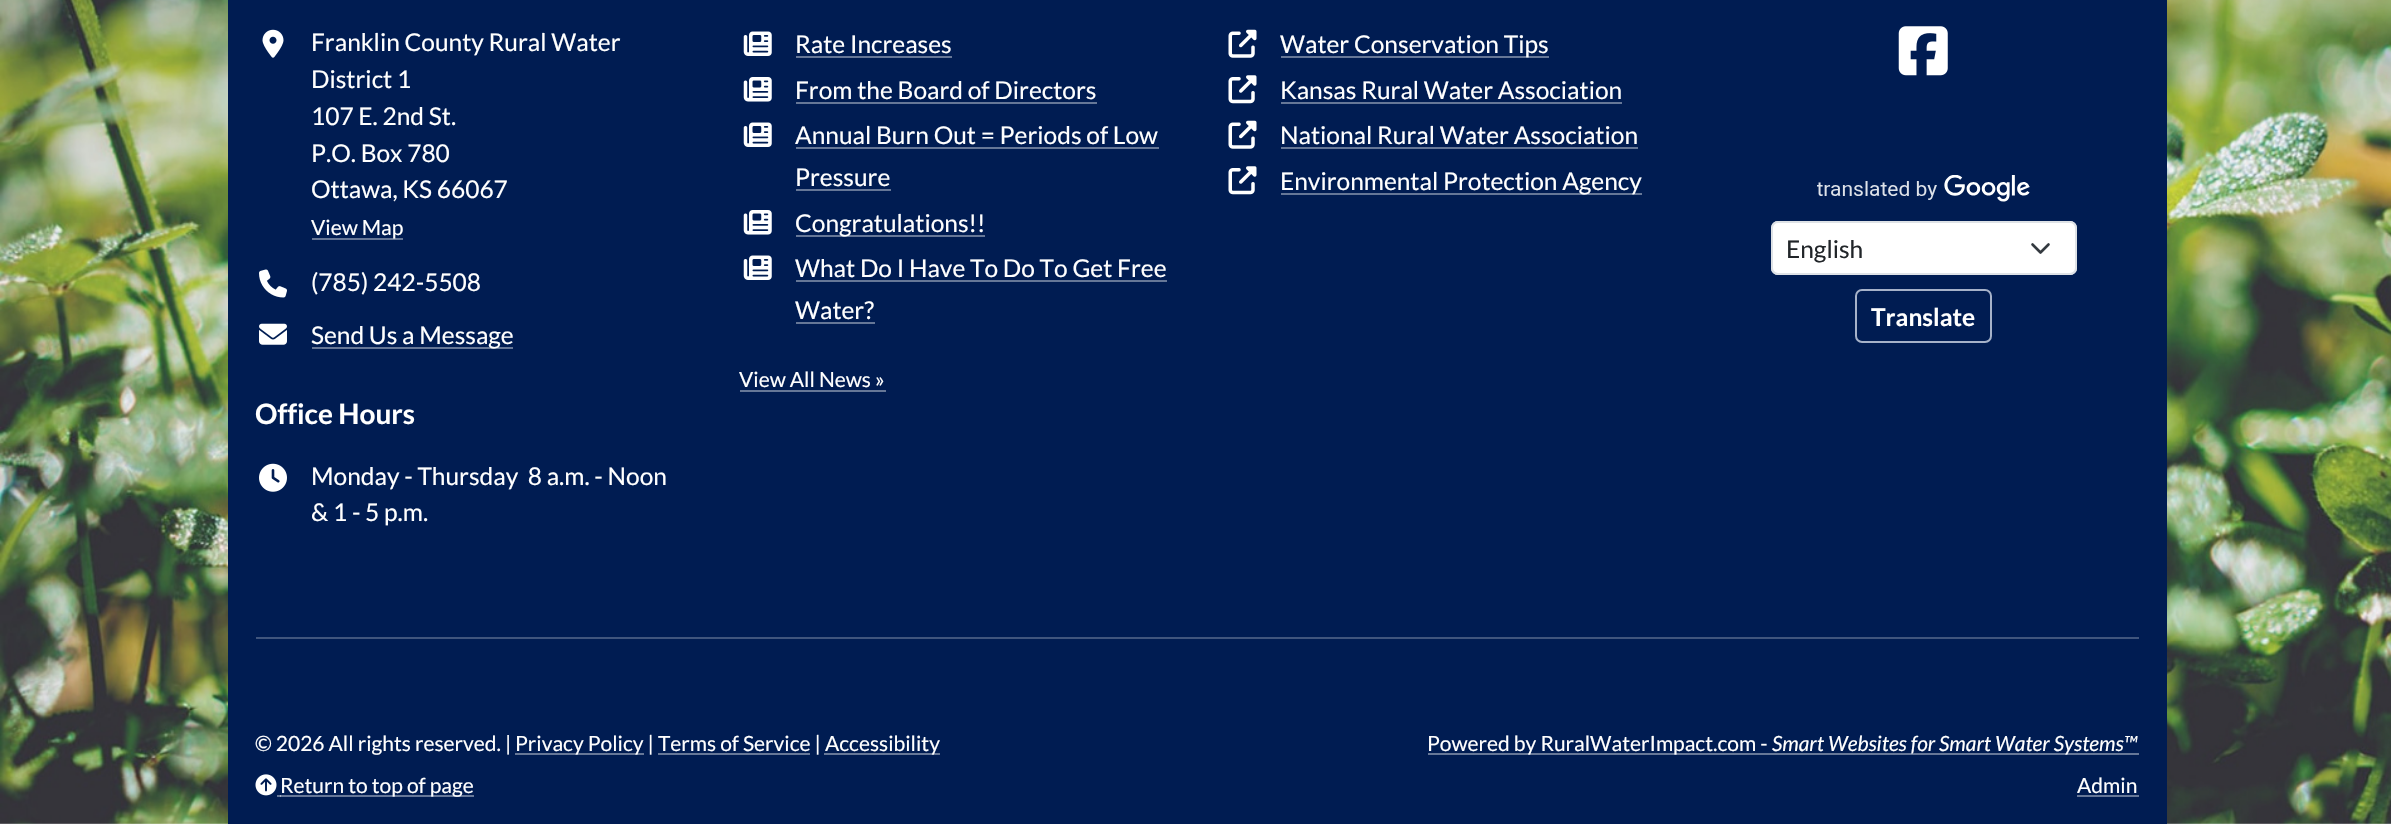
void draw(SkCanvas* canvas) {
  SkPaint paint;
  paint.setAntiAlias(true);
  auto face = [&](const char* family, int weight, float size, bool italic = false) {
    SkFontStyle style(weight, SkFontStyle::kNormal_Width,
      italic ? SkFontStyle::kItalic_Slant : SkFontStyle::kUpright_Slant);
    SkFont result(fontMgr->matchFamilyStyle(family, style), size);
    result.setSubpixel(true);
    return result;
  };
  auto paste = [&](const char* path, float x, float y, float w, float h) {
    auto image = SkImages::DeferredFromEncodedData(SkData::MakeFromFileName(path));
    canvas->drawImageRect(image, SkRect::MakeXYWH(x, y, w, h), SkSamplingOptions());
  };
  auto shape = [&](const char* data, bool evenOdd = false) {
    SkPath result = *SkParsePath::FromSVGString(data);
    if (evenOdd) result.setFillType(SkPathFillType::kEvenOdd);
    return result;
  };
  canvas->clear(0xffffffff);
  paste("img/1.png", 0, 0, 2391, 824);
  paint.setColor(0xff001c52);
  canvas->drawRect(SkRect::MakeXYWH(228, 0, 1939, 824), paint);
  paste("img/2.png", 262, 29, 22, 29);
  paint.setColor(0xff667797);
  canvas->drawRect(SkRect::MakeXYWH(312, 238, 91, 2), paint);
  paste("img/3.png", 259, 269, 28, 29);
  paste("img/4.png", 259, 323, 28, 22);
  canvas->drawRect(SkRect::MakeXYWH(312, 347, 201, 2), paint);
  paste("img/5.png", 259, 463, 28, 29);
  paste("img/6.png", 743, 31, 29, 25);
  canvas->drawRect(SkRect::MakeXYWH(796, 56, 156, 2), paint);
  paste("img/7.png", 743, 77, 29, 25);
  canvas->drawRect(SkRect::MakeXYWH(796, 102, 301, 2), paint);
  paste("img/6.png", 743, 122, 29, 25);
  canvas->drawRect(SkRect::MakeXYWH(796, 147, 363, 2), paint);
  canvas->drawRect(SkRect::MakeXYWH(796, 189, 95, 2), paint);
  paste("img/7.png", 743, 210, 29, 25);
  canvas->drawRect(SkRect::MakeXYWH(796, 235, 189, 2), paint);
  paste("img/6.png", 743, 255, 29, 25);
  {
    const struct { float x, y, w, h; SkColor color; } items[] = {
      {796, 280, 371, 2, 0xff667797},
      {796, 322, 79, 2, 0xff667797},
      {740, 390, 146, 2, 0xff667797},
    };
    for (auto [x, y, w, h, color] : items) {
      paint.setColor(color);
      canvas->drawRect(SkRect::MakeXYWH(x, y, w, h), paint);
    }
  }
  paste("img/8.png", 1228, 29, 29, 29);
  canvas->drawRect(SkRect::MakeXYWH(1281, 56, 268, 2), paint);
  paste("img/9.png", 1228, 75, 29, 29);
  canvas->drawRect(SkRect::MakeXYWH(1281, 102, 341, 2), paint);
  paste("img/8.png", 1228, 120, 29, 29);
  canvas->drawRect(SkRect::MakeXYWH(1281, 147, 357, 2), paint);
  paste("img/9.png", 1228, 166, 29, 29);
  canvas->drawRect(SkRect::MakeXYWH(1281, 193, 361, 2), paint);
  paste("img/10.png", 1898, 26, 50, 50);
  paste("img/11.png", 1817, 175, 213, 27);
  paint.setColor(0xffffffff);
  canvas->drawRoundRect(SkRect::MakeXYWH(1771, 221, 306, 54), 7, 7, paint);
  paint.setStroke(true);
  paint.setStrokeWidth(2.6f);
  paint.setStrokeCap(SkPaint::kRound_Cap);
  paint.setStrokeJoin(SkPaint::kRound_Join);
  paint.setColor(0xff343a40);
  canvas->drawPath(shape("M2032.5 244.5L2040.5 252.5L2048.5 244.5"), paint);
  paint.setStrokeWidth(2);
  paint.setStrokeCap(SkPaint::kButt_Cap);
  paint.setStrokeJoin(SkPaint::kMiter_Join);
  paint.setColor(0xffdee2e6);
  canvas->drawRoundRect(SkRect::MakeXYWH(1772, 222, 304, 52), 6, 6, paint);
  paint.setColor(0xffa6b2c9);
  canvas->drawRoundRect(SkRect::MakeXYWH(1856, 290, 135, 52), 6, 6, paint);
  paint.setStroke(false);
  {
    const struct { float x, y, w, h; SkColor color; } items[] = {
      {256, 637, 1883, 2, 0xff40557d},
      {515, 753, 129, 2, 0xff667797},
      {824, 753, 116, 2, 0xff667797},
    };
    for (auto [x, y, w, h, color] : items) {
      paint.setColor(color);
      canvas->drawRect(SkRect::MakeXYWH(x, y, w, h), paint);
    }
  }
  paste("img/12.png", 255, 774, 22, 22);
  {
    const struct { float x, y, w, h; SkColor color; } items[] = {
      {277, 795, 4, 2, 0xff667797},
      {280, 795, 194, 2, 0x66ffffff},
      {1428, 753, 711, 2, 0xff667797},
      {2077, 795, 62, 2, 0xff667797},
    };
    for (auto [x, y, w, h, color] : items) {
      paint.setColor(color);
      canvas->drawRect(SkRect::MakeXYWH(x, y, w, h), paint);
    }
  }
  auto f0 = face("Lato", 400, 24.5f);
  paint.setColor(0xffffffff);
  {
    const struct { const char* s; float x, y; } items[] = {
      {"Franklin County Rural Water", 311, 51},
      {"District 1", 311, 88},
      {"107 E. 2nd St.", 311, 125},
      {"P.O. Box 780", 311, 162},
      {"Ottawa, KS 66067", 311, 198},
    };
    for (auto [s, x, y] : items) {
      canvas->drawString(s, x, y, f0, paint);
    }
  }
  auto f1 = face("Lato", 400, 21);
  canvas->drawString("View Map", 311, 235, f1, paint);
  canvas->drawString("(785) 242-5508", 311, 291, f0, paint);
  canvas->drawString("Send Us a Message", 311, 344, f0, paint);
  auto f2 = face("Lato", 700, 28);
  canvas->drawString("Office Hours", 255, 424, f2, paint);
  {
    const struct { const char* s; float x, y; } items[] = {
      {"Monday - Thursday  8 a.m. - Noon", 311, 485},
      {"& 1 - 5 p.m.", 311, 521},
      {"Rate Increases", 795, 53},
      {"From the Board of Directors", 795, 99},
      {"Annual Burn Out = Periods of Low", 795, 144},
      {"Pressure", 795, 186},
      {"Congratulations!!", 795, 232},
      {"What Do I Have To Do To Get Free", 795, 277},
      {"Water?", 795, 319},
    };
    for (auto [s, x, y] : items) {
      canvas->drawString(s, x, y, f0, paint);
    }
  }
  canvas->drawString("View All News »", 739, 387, f1, paint);
  {
    const struct { const char* s; float x, y; } items[] = {
      {"Water Conservation Tips", 1280, 53},
      {"Kansas Rural Water Association", 1280, 99},
      {"National Rural Water Association", 1280, 144},
      {"Environmental Protection Agency", 1280, 190},
    };
    for (auto [s, x, y] : items) {
      canvas->drawString(s, x, y, f0, paint);
    }
  }
  paint.setColor(0xff212529);
  canvas->drawString("English", 1786, 258, f0, paint);
  auto f3 = face("Lato", 700, 24.5f);
  paint.setColor(0xffffffff);
  canvas->drawString("Translate", 1871, 326, f3, paint);
  {
    const struct { const char* s; float x, y; } items[] = {
      {"© 2026 All rights reserved. |", 255, 751},
      {"Privacy Policy | Terms of Service |", 515, 751},
      {"Accessibility", 825, 751},
    };
    for (auto [s, x, y] : items) {
      canvas->drawString(s, x, y, f1, paint);
    }
  }
  paint.setColor(0xff667797);
  canvas->drawRect(SkRect::MakeXYWH(658, 753, 152, 2), paint);
  paint.setColor(0xffffffff);
  canvas->drawString("Return to top of page", 280, 793, f1, paint);
  canvas->drawString("Powered by RuralWaterImpact.com -", 1427, 751, f1, paint);
  auto f4 = face("Lato", 400, 21, true);
  canvas->drawString("Smart Websites for Smart Water Systems™", 1772, 751, f4, paint);
  canvas->drawString("Admin", 2077, 793, f1, paint);
}
